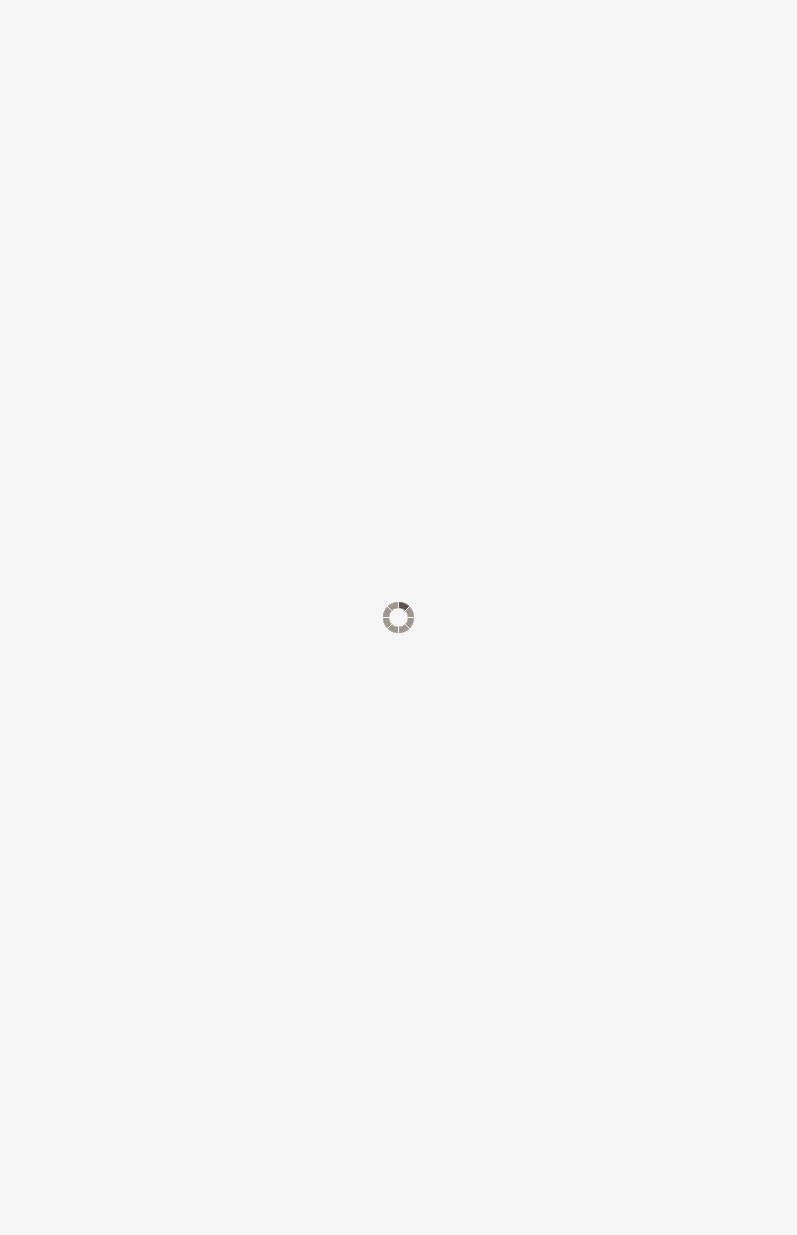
void draw(SkCanvas* canvas) {
  SkPaint paint;
  paint.setAntiAlias(true);
  auto paste = [&](const char* path, float x, float y, float w, float h) {
    auto image = SkImages::DeferredFromEncodedData(SkData::MakeFromFileName(path));
    canvas->drawImageRect(image, SkRect::MakeXYWH(x, y, w, h), SkSamplingOptions());
  };
  canvas->clear(0xfff5f5f5);
  paste("img/1.png", 383, 602, 31, 31);
}
